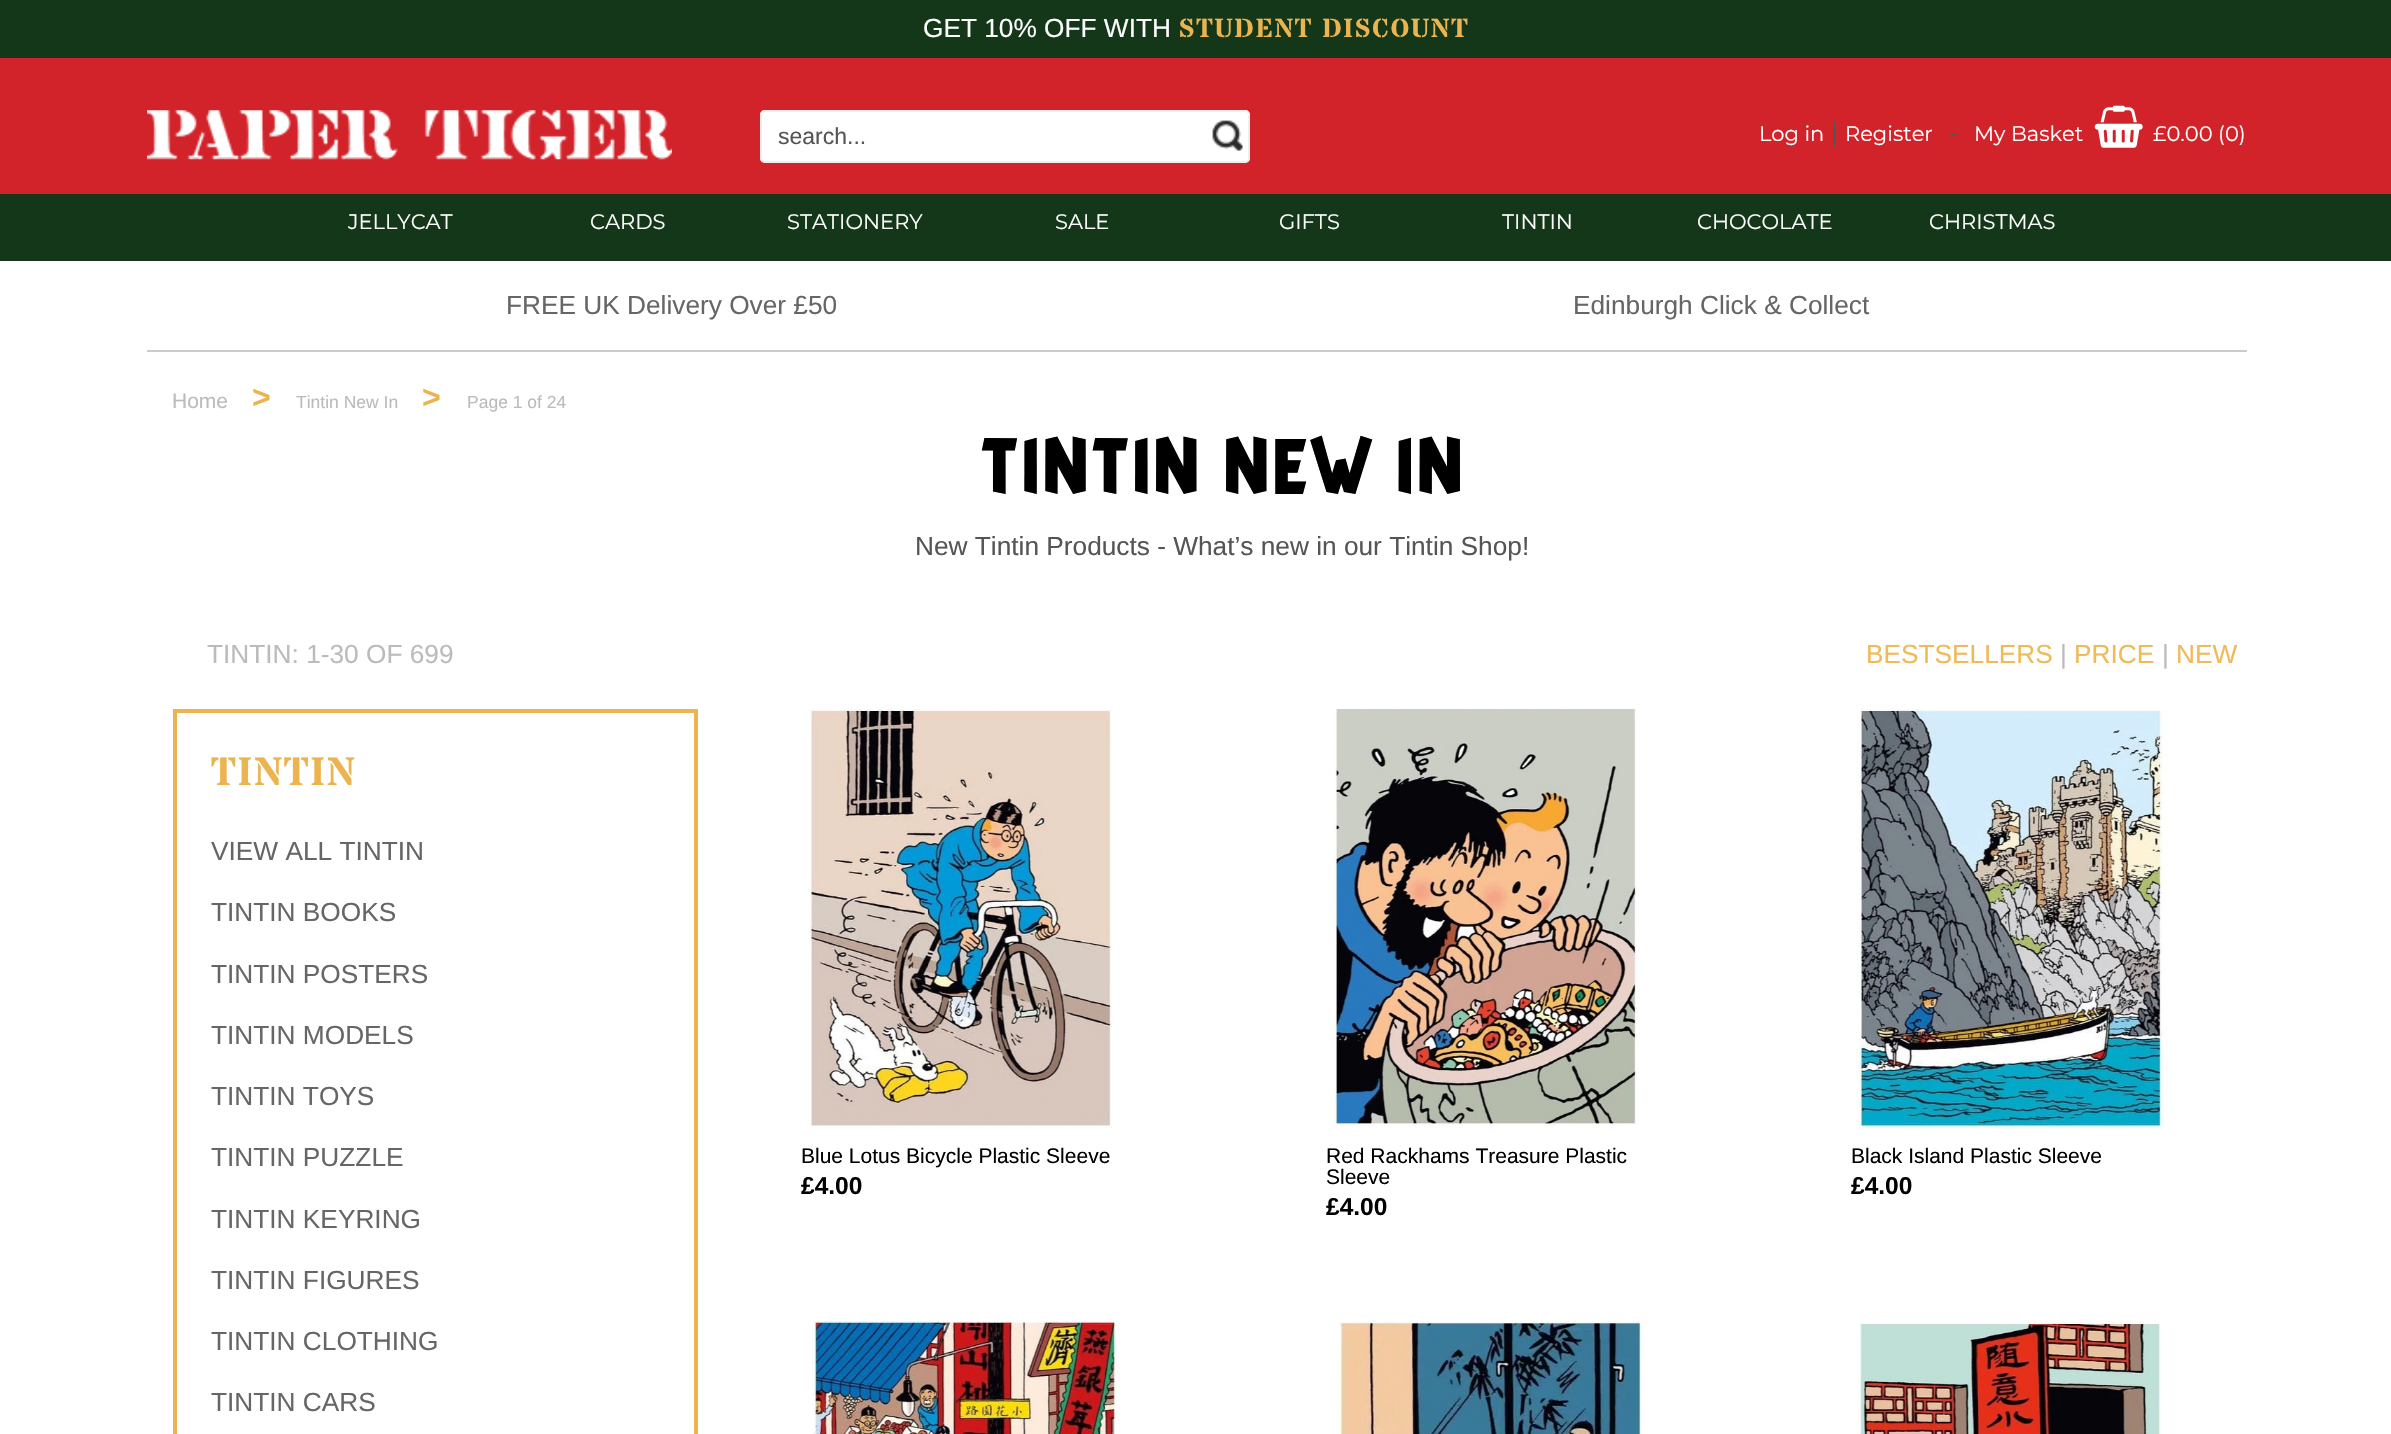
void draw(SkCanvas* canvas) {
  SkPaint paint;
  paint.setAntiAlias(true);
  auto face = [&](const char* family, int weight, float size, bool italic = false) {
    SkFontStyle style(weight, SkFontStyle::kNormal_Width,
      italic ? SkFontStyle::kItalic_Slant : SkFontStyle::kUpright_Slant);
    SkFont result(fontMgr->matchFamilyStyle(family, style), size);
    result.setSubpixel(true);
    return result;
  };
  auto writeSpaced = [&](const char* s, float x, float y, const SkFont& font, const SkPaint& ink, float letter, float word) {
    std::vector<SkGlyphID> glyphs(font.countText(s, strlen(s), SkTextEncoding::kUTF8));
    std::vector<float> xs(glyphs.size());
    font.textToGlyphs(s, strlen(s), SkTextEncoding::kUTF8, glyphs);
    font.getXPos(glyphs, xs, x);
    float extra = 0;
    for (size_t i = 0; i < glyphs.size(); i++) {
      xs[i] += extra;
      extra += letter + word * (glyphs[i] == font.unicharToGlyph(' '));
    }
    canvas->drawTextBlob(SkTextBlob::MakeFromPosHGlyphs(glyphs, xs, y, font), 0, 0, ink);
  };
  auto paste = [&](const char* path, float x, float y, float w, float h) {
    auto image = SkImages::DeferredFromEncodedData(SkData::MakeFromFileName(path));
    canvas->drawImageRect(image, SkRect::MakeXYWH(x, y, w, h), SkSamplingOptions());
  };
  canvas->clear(0xffffffff);
  paint.setColor(0xff143719);
  canvas->drawRect(SkRect::MakeXYWH(0, 0, 2391, 58), paint);
  paint.setColor(0xffd2232a);
  canvas->drawRect(SkRect::MakeXYWH(0, 58, 2391, 136), paint);
  paste("img/1.png", 147, 110, 525, 50);
  paint.setColor(0xffffffff);
  canvas->drawRoundRect(SkRect::MakeXYWH(760, 110, 490, 53), 5, 5, paint);
  paste("img/2.png", 1212, 120, 31, 31);
  paint.setStroke(true);
  paint.setStrokeWidth(2);
  paint.setColor(0xffefefef);
  canvas->drawRoundRect(SkRect::MakeXYWH(761, 111, 488, 51), 4, 4, paint);
  paste("img/3.png", 2094, 105, 49, 43);
  paint.setStroke(false);
  paint.setColor(0xff143719);
  canvas->drawRect(SkRect::MakeXYWH(0, 194, 2391, 67), paint);
  paint.setColor(0xffcccccc);
  canvas->drawRect(SkRect::MakeXYWH(147, 350, 2100, 2), paint);
  paint.setStroke(true);
  paint.setStrokeWidth(4);
  paint.setColor(0xffebb450);
  canvas->drawRect(SkRect::MakeXYWH(175, 711, 521, 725), paint);
  paste("img/4.png", 809, 709, 304, 420);
  paste("img/5.png", 1332, 709, 306, 420);
  paste("img/6.png", 1855, 709, 313, 420);
  paste("img/7.png", 811, 1321, 309, 113);
  paste("img/8.png", 1337, 1321, 308, 113);
  paste("img/9.png", 1858, 1321, 303, 113);
  auto f0 = face("Liberation Sans", 400, 26.25f);
  paint.setStroke(false);
  paint.setColor(0xffffffff);
  canvas->drawString("GET 10% OFF WITH", 923, 37, f0, paint);
  auto f1 = face("Stardos Stencil", 700, 26.25f);
  paint.setColor(0xffebb450);
  writeSpaced("STUDENT DISCOUNT", 1179, 37, f1, paint, 1.75f, 0);
  auto f2 = face("Liberation Sans", 400, 23);
  paint.setColor(0xff555555);
  canvas->drawString("search...", 778, 144, f2, paint);
  auto f3 = face("Montserrat", 400, 21);
  paint.setColor(0xffffffff);
  canvas->drawString("Log in", 1759, 141, f3, paint);
  paint.setColor(0xff555555);
  canvas->drawString("|", 1831, 141, f0, paint);
  paint.setColor(0xffffffff);
  canvas->drawString("Register", 1845, 141, f3, paint);
  paint.setColor(0xff555555);
  canvas->drawString("-", 1949, 141, f0, paint);
  paint.setColor(0xffffffff);
  {
    const struct { const char* s; float x, y; } items[] = {
      {"My Basket", 1974, 141},
      {"£0.00 (0)", 2153, 141},
      {"JELLYCAT", 348, 229},
      {"CARDS", 590, 229},
      {"STATIONERY", 787, 229},
      {"SALE", 1055, 229},
      {"GIFTS", 1279, 229},
      {"TINTIN", 1502, 229},
      {"CHOCOLATE", 1697, 229},
      {"CHRISTMAS", 1929, 229},
    };
    for (auto [s, x, y] : items) {
      canvas->drawString(s, x, y, f3, paint);
    }
  }
  paint.setColor(0xff666666);
  canvas->drawString("FREE UK Delivery Over £50", 506, 314, f0, paint);
  canvas->drawString("Edinburgh Click & Collect", 1573, 314, f0, paint);
  auto f4 = face("Liberation Sans", 400, 21);
  paint.setColor(0xffbbbbbb);
  canvas->drawString("Home", 172, 408, f4, paint);
  auto f5 = face("Liberation Sans", 700, 32);
  paint.setColor(0xffebb450);
  canvas->drawString(">", 252, 408, f5, paint);
  auto f6 = face("Liberation Sans", 400, 17.5f);
  paint.setColor(0xffbbbbbb);
  canvas->drawString("Tintin New In", 296, 408, f6, paint);
  paint.setColor(0xffebb450);
  canvas->drawString(">", 422, 408, f5, paint);
  paint.setColor(0xffbbbbbb);
  canvas->drawString("Page 1 of 24", 467, 408, f6, paint);
  auto f7 = face("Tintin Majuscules", 700, 63);
  paint.setColor(0xff000000);
  writeSpaced("TINTIN NEW IN", 980, 494, f7, paint, 1.75f, 0);
  paint.setColor(0xff555555);
  canvas->drawString("New Tintin Products - What’s new in our Tintin Shop!", 915, 555, f0, paint);
  paint.setColor(0xffbbbbbb);
  canvas->drawString("TINTIN: 1-30 OF 699", 207, 663, f0, paint);
  paint.setColor(0xffefba57);
  canvas->drawString("BESTSELLERS", 1866, 663, f0, paint);
  paint.setColor(0xffbbbbbb);
  canvas->drawString("|", 2060, 663, f0, paint);
  paint.setColor(0xffefba57);
  canvas->drawString("PRICE", 2074, 663, f0, paint);
  paint.setColor(0xffbbbbbb);
  canvas->drawString("|", 2162, 663, f0, paint);
  paint.setColor(0xffefba57);
  canvas->drawString("NEW", 2176, 663, f0, paint);
  auto f8 = face("Stardos Stencil", 700, 39.5f);
  paint.setColor(0xffebb450);
  writeSpaced("TINTIN", 211, 785, f8, paint, 1.75f, 0);
  paint.setColor(0xff666666);
  {
    const struct { const char* s; float x, y; } items[] = {
      {"VIEW ALL TINTIN", 211, 860},
      {"TINTIN BOOKS", 211, 921},
      {"TINTIN POSTERS", 211, 983},
      {"TINTIN MODELS", 211, 1044},
      {"TINTIN TOYS", 211, 1105},
      {"TINTIN PUZZLE", 211, 1166},
      {"TINTIN KEYRING", 211, 1228},
      {"TINTIN FIGURES", 211, 1289},
      {"TINTIN CLOTHING", 211, 1350},
      {"TINTIN CARS", 211, 1411},
    };
    for (auto [s, x, y] : items) {
      canvas->drawString(s, x, y, f0, paint);
    }
  }
  paint.setColor(0xff000000);
  canvas->drawString("Blue Lotus Bicycle Plastic Sleeve", 801, 1163, f4, paint);
  auto f9 = face("Liberation Sans", 700, 24.5f);
  canvas->drawString("£4.00", 801, 1194, f9, paint);
  canvas->drawString("Red Rackhams Treasure Plastic", 1326, 1163, f4, paint);
  canvas->drawString("Sleeve", 1326, 1184, f4, paint);
  canvas->drawString("£4.00", 1326, 1215, f9, paint);
  canvas->drawString("Black Island Plastic Sleeve", 1851, 1163, f4, paint);
  canvas->drawString("£4.00", 1851, 1194, f9, paint);
}
